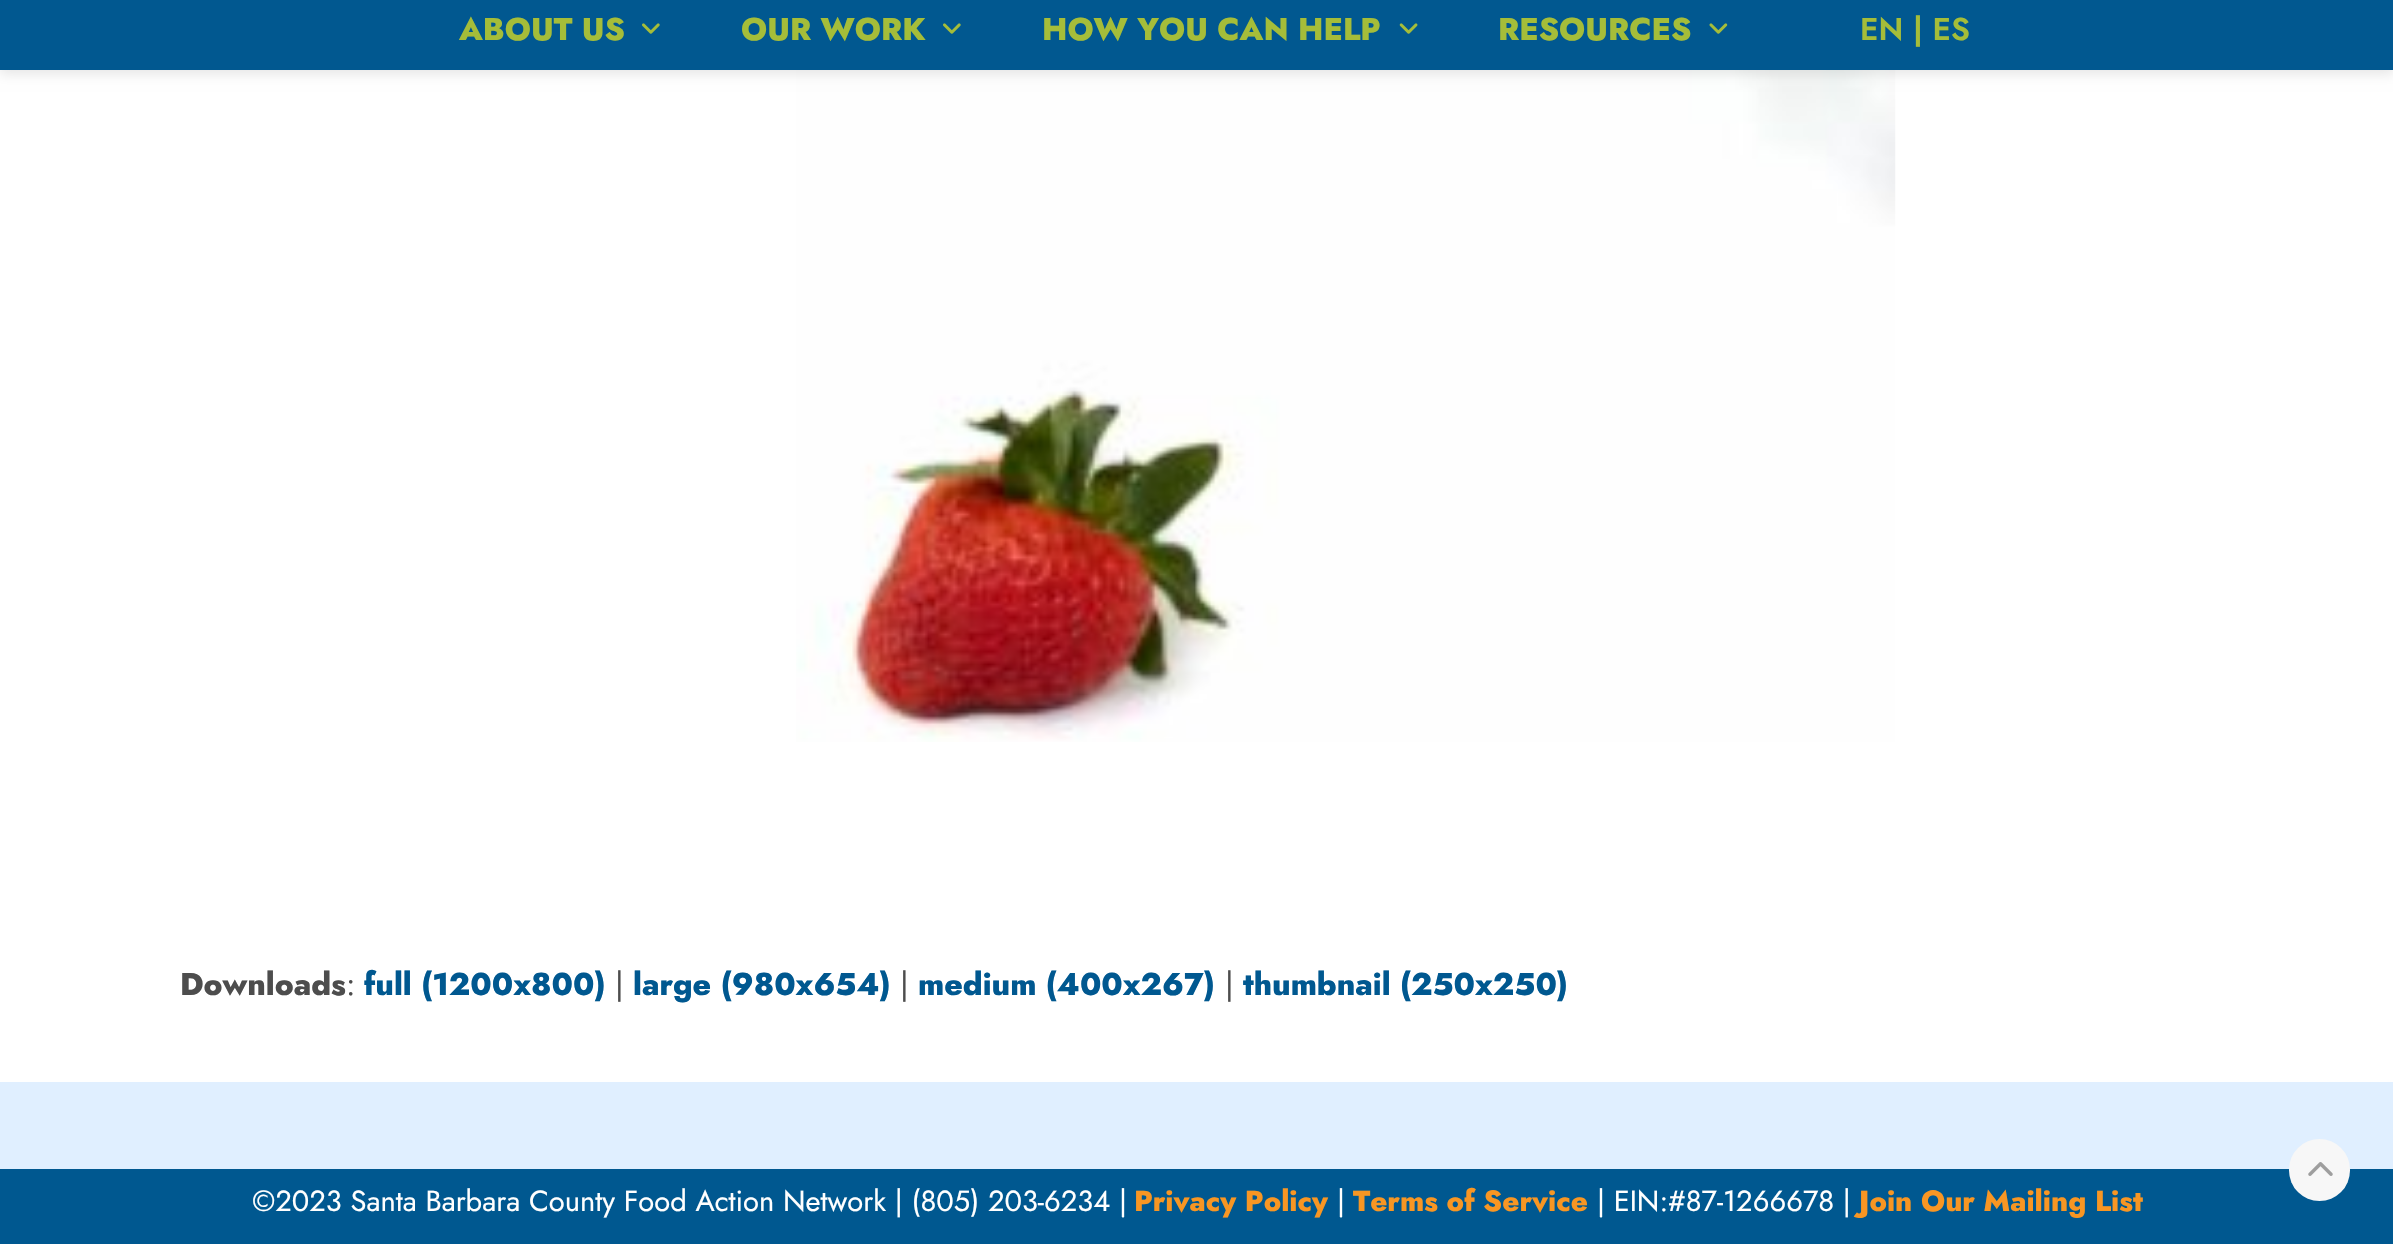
void draw(SkCanvas* canvas) {
  SkPaint paint;
  paint.setAntiAlias(true);
  auto face = [&](const char* family, int weight, float size, bool italic = false) {
    SkFontStyle style(weight, SkFontStyle::kNormal_Width,
      italic ? SkFontStyle::kItalic_Slant : SkFontStyle::kUpright_Slant);
    SkFont result(fontMgr->matchFamilyStyle(family, style), size);
    result.setSubpixel(true);
    return result;
  };
  auto paste = [&](const char* path, float x, float y, float w, float h) {
    auto image = SkImages::DeferredFromEncodedData(SkData::MakeFromFileName(path));
    canvas->drawImageRect(image, SkRect::MakeXYWH(x, y, w, h), SkSamplingOptions());
  };
  canvas->clear(0xffffffff);
  paste("img/4.png", 796, 70, 1100, 672);
  paint.setColor(0x1a000000);
  paint.setMaskFilter(SkMaskFilter::MakeBlur(kNormal_SkBlurStyle, 6));
  canvas->drawRect(SkRect::MakeXYWH(0, 4, 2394, 70), paint);
  paint.setMaskFilter(nullptr);
  paint.setColor(0xff015890);
  canvas->drawRect(SkRect::MakeXYWH(0, 0, 2393, 70), paint);
  paste("img/1.png", 642, 23, 18, 11);
  paste("img/1.png", 943, 23, 18, 11);
  paste("img/2.png", 1399, 23, 19, 11);
  paste("img/3.png", 1709, 23, 19, 11);
  paint.setColor(0xffe0efff);
  canvas->drawRect(SkRect::MakeXYWH(0, 1082, 2393, 87), paint);
  paint.setColor(0xff005890);
  canvas->drawRect(SkRect::MakeXYWH(0, 1169, 2393, 75), paint);
  paint.setColor(0xfff7f7f7);
  canvas->drawRoundRect(SkRect::MakeXYWH(2289, 1139, 61, 62), 30.5f, 30.5f, paint);
  paste("img/5.png", 2308, 1162, 25, 14);
  auto f0 = face("Jost", 800, 31.5f);
  paint.setColor(0xffa5bd39);
  {
    const struct { const char* s; float x, y; } items[] = {
      {"ABOUT US", 459, 40},
      {"OUR WORK", 741, 40},
      {"HOW YOU CAN HELP", 1042, 40},
      {"RESOURCES", 1498, 40},
    };
    for (auto [s, x, y] : items) {
      canvas->drawString(s, x, y, f0, paint);
    }
  }
  auto f1 = face("Jost", 600, 31.5f);
  canvas->drawString("EN | ES", 1860, 40, f1, paint);
  paint.setColor(0xff4d4d4d);
  canvas->drawString("Downloads", 180, 995, f0, paint);
  auto f2 = face("Jost", 400, 31.5f);
  canvas->drawString(":", 346, 995, f2, paint);
  paint.setColor(0xff005890);
  canvas->drawString("full (1200x800)", 364, 995, f0, paint);
  paint.setColor(0xff4d4d4d);
  canvas->drawString("|", 615, 995, f2, paint);
  paint.setColor(0xff005890);
  canvas->drawString("large (980x654)", 633, 995, f0, paint);
  paint.setColor(0xff4d4d4d);
  canvas->drawString("|", 900, 995, f2, paint);
  paint.setColor(0xff005890);
  canvas->drawString("medium (400x267)", 918, 995, f0, paint);
  paint.setColor(0xff4d4d4d);
  canvas->drawString("|", 1225, 995, f2, paint);
  paint.setColor(0xff005890);
  canvas->drawString("thumbnail (250x250)", 1243, 995, f0, paint);
  auto f3 = face("Jost", 400, 29.1f);
  paint.setColor(0xffffffff);
  canvas->drawString("©2023 Santa Barbara County Food Action Network | (805) 203-6234 |", 252, 1211, f3, paint);
  auto f4 = face("Jost", 800, 29.1f);
  paint.setColor(0xfff89623);
  canvas->drawString("Privacy Policy", 1134, 1211, f4, paint);
  paint.setColor(0xffffffff);
  canvas->drawString("|", 1337, 1211, f3, paint);
  paint.setColor(0xfff89623);
  canvas->drawString("Terms of Service", 1353, 1211, f4, paint);
  paint.setColor(0xffffffff);
  canvas->drawString("| EIN:#87-1266678 |", 1597, 1211, f3, paint);
  paint.setColor(0xfff89623);
  canvas->drawString("Join Our Mailing List", 1859, 1211, f4, paint);
}
